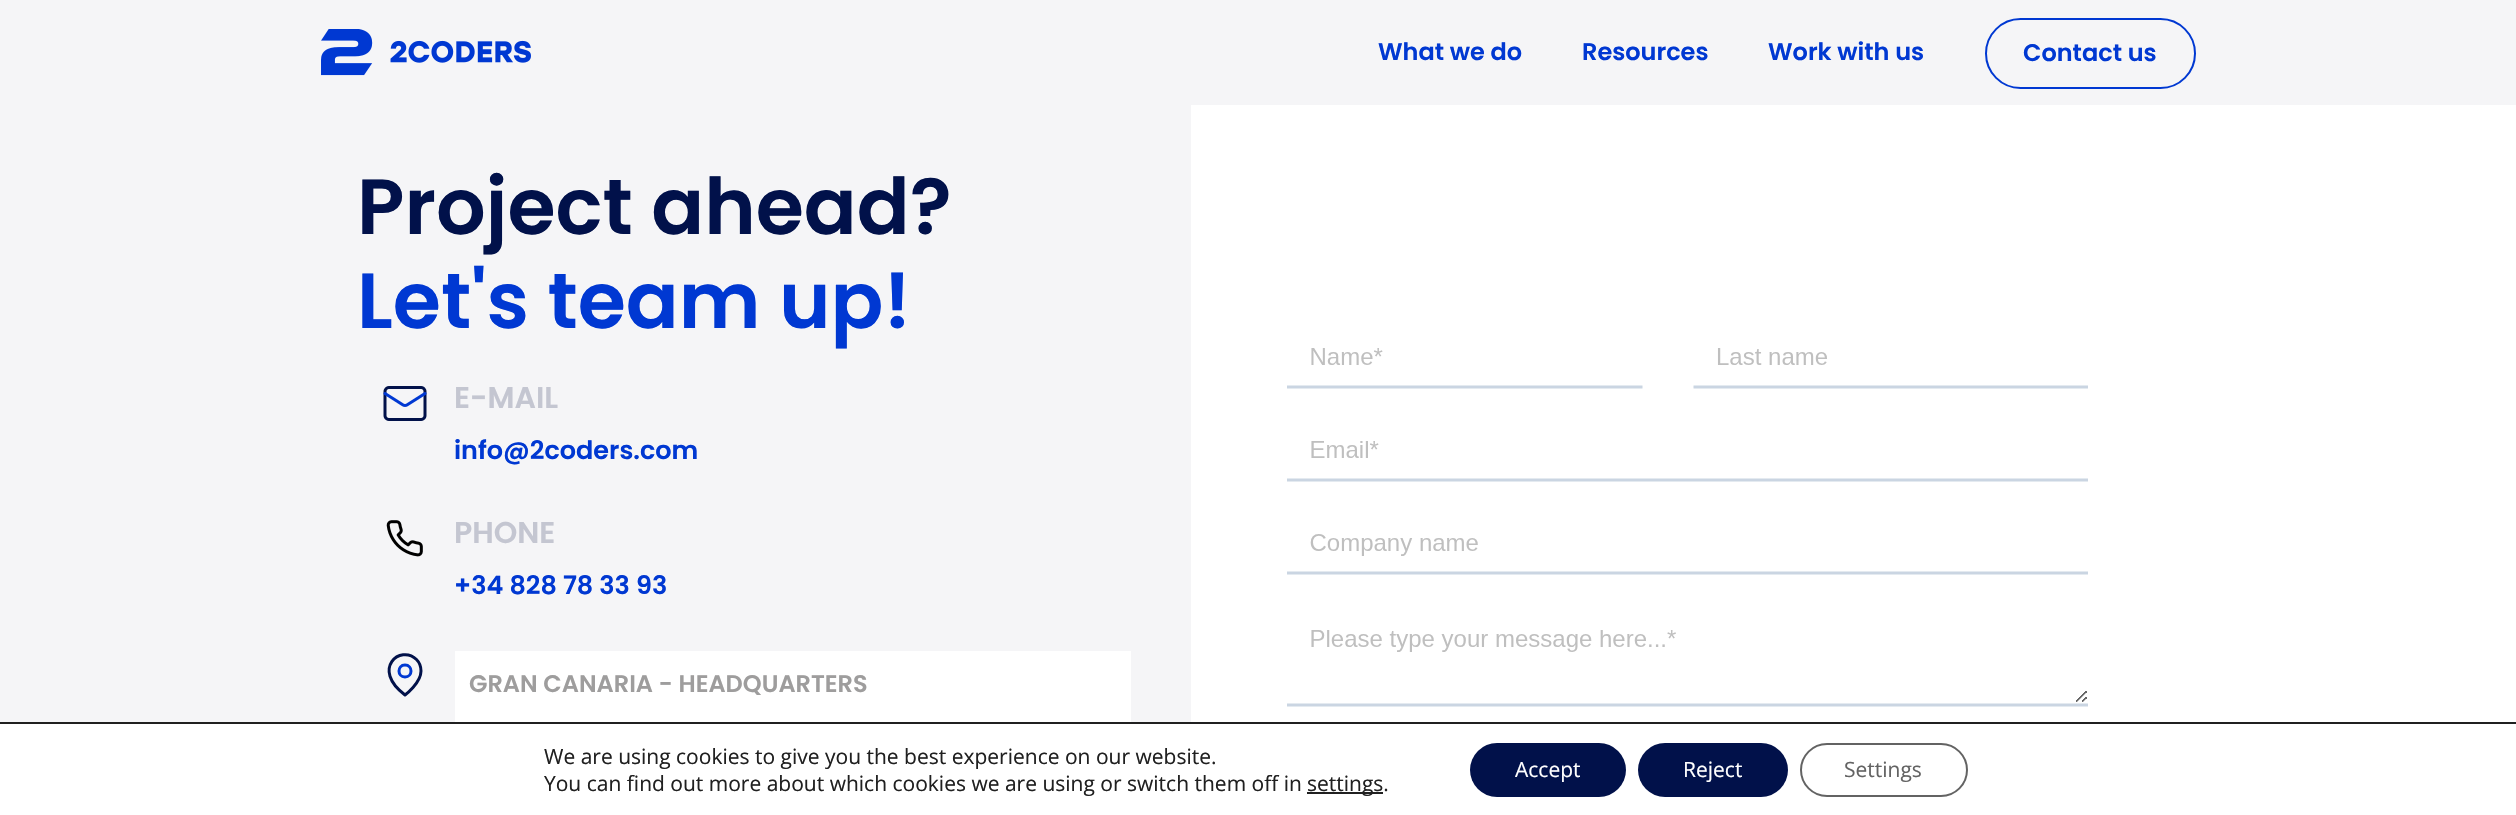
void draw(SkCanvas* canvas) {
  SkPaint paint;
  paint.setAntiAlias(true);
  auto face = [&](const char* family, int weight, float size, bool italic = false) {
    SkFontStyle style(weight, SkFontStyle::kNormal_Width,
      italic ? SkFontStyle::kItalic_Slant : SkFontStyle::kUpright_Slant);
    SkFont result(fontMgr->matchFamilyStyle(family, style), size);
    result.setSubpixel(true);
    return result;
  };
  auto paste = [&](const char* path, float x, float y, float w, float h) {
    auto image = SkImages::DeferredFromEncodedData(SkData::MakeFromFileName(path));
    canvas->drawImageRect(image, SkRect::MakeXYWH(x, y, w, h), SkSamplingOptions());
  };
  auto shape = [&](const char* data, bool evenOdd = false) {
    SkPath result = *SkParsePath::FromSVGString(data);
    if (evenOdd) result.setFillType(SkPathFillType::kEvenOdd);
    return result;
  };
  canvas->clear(0xfff5f5f7);
  paste("img/1.png", 321, 29, 210, 47);
  paint.setStroke(true);
  paint.setStrokeWidth(2);
  paint.setColor(0xff0038d2);
  canvas->drawRoundRect(SkRect::MakeXYWH(1986, 19, 209, 69), 34.5f, 34.5f, paint);
  paint.setStroke(false);
  paint.setColor(0xffffffff);
  canvas->drawRect(SkRect::MakeXYWH(1191, 105, 1325, 617), paint);
  paste("img/2.png", 383, 386, 44, 35);
  paste("img/3.png", 386, 520, 37, 37);
  paint.setStroke(true);
  paint.setStrokeWidth(3);
  paint.setStrokeCap(SkPaint::kRound_Cap);
  paint.setStrokeJoin(SkPaint::kRound_Join);
  paint.setColor(0xff01114a);
  canvas->drawPath(shape("M421 671C421 683 405 695 405 695C370.5 669 400.5 644 416.5 659.5C419.5 662.5 421 667 421 671Z"), paint);
  paint.setColor(0xff0038d2);
  canvas->drawPath(shape("M405 677C413 677 413 665 405 665C397 665 397 677 405 677Z"), paint);
  paint.setStroke(false);
  paint.setColor(0xffffffff);
  canvas->drawRect(SkRect::MakeXYWH(455, 651, 676, 71), paint);
  paste("img/4.png", 1287, 348, 801, 359);
  {
    const struct { float x, y, w, h; SkColor color; } items[] = {
      {0, 724, 2516, 91, 0xffffffff},
      {0, 722, 2516, 2, 0xff202020},
      {1307, 792, 76, 2, 0xff202020},
    };
    for (auto [x, y, w, h, color] : items) {
      paint.setColor(color);
      canvas->drawRect(SkRect::MakeXYWH(x, y, w, h), paint);
    }
  }
  paint.setColor(0xff01114a);
  canvas->drawRoundRect(SkRect::MakeXYWH(1470, 743, 156, 54), 27, 27, paint);
  canvas->drawRoundRect(SkRect::MakeXYWH(1638, 743, 150, 54), 27, 27, paint);
  paint.setStroke(true);
  paint.setStrokeWidth(2);
  paint.setStrokeCap(SkPaint::kButt_Cap);
  paint.setStrokeJoin(SkPaint::kMiter_Join);
  paint.setColor(0xff636363);
  canvas->drawRoundRect(SkRect::MakeXYWH(1801, 744, 166, 52), 26, 26, paint);
  auto f0 = face("Poppins", 600, 24);
  paint.setStroke(false);
  paint.setColor(0xff0038d2);
  {
    const struct { const char* s; float x, y; } items[] = {
      {"What we do", 1378, 60},
      {"Resources", 1582, 60},
      {"Work with us", 1768, 60},
      {"Contact us", 2023, 61},
    };
    for (auto [s, x, y] : items) {
      canvas->drawString(s, x, y, f0, paint);
    }
  }
  auto f1 = face("Poppins", 600, 78);
  paint.setColor(0xff01114a);
  canvas->drawString("Project ahead?", 357, 234, f1, paint);
  paint.setColor(0xff0038d2);
  canvas->drawString("Let's team up!", 357, 328, f1, paint);
  auto f2 = face("Poppins", 600, 30);
  paint.setColor(0xffc4c6d1);
  canvas->drawString("E-MAIL", 454, 408, f2, paint);
  auto f3 = face("Poppins", 600, 25.5f);
  paint.setColor(0xff0038d2);
  canvas->drawString("info@2coders.com", 454, 459, f3, paint);
  paint.setColor(0xffc4c6d1);
  canvas->drawString("PHONE", 454, 543, f2, paint);
  paint.setColor(0xff0038d2);
  canvas->drawString("+34 828 78 33 93", 454, 594, f3, paint);
  paint.setColor(0xff9e9d9d);
  canvas->drawString("GRAN CANARIA - HEADQUARTERS", 469, 692, f0, paint);
  auto f4 = face("Open Sans", 400, 21);
  paint.setColor(0xff202020);
  {
    const struct { const char* s; float x, y; } items[] = {
      {"We are using cookies to give you the best experience on our website.", 544, 764},
      {"You can find out more about which cookies we are using or switch them off in", 544, 791},
      {"settings.", 1307, 791},
    };
    for (auto [s, x, y] : items) {
      canvas->drawString(s, x, y, f4, paint);
    }
  }
  paint.setColor(0xffffffff);
  canvas->drawString("Accept", 1515, 777, f4, paint);
  canvas->drawString("Reject", 1683, 777, f4, paint);
  paint.setColor(0xff636363);
  canvas->drawString("Settings", 1844, 777, f4, paint);
}
